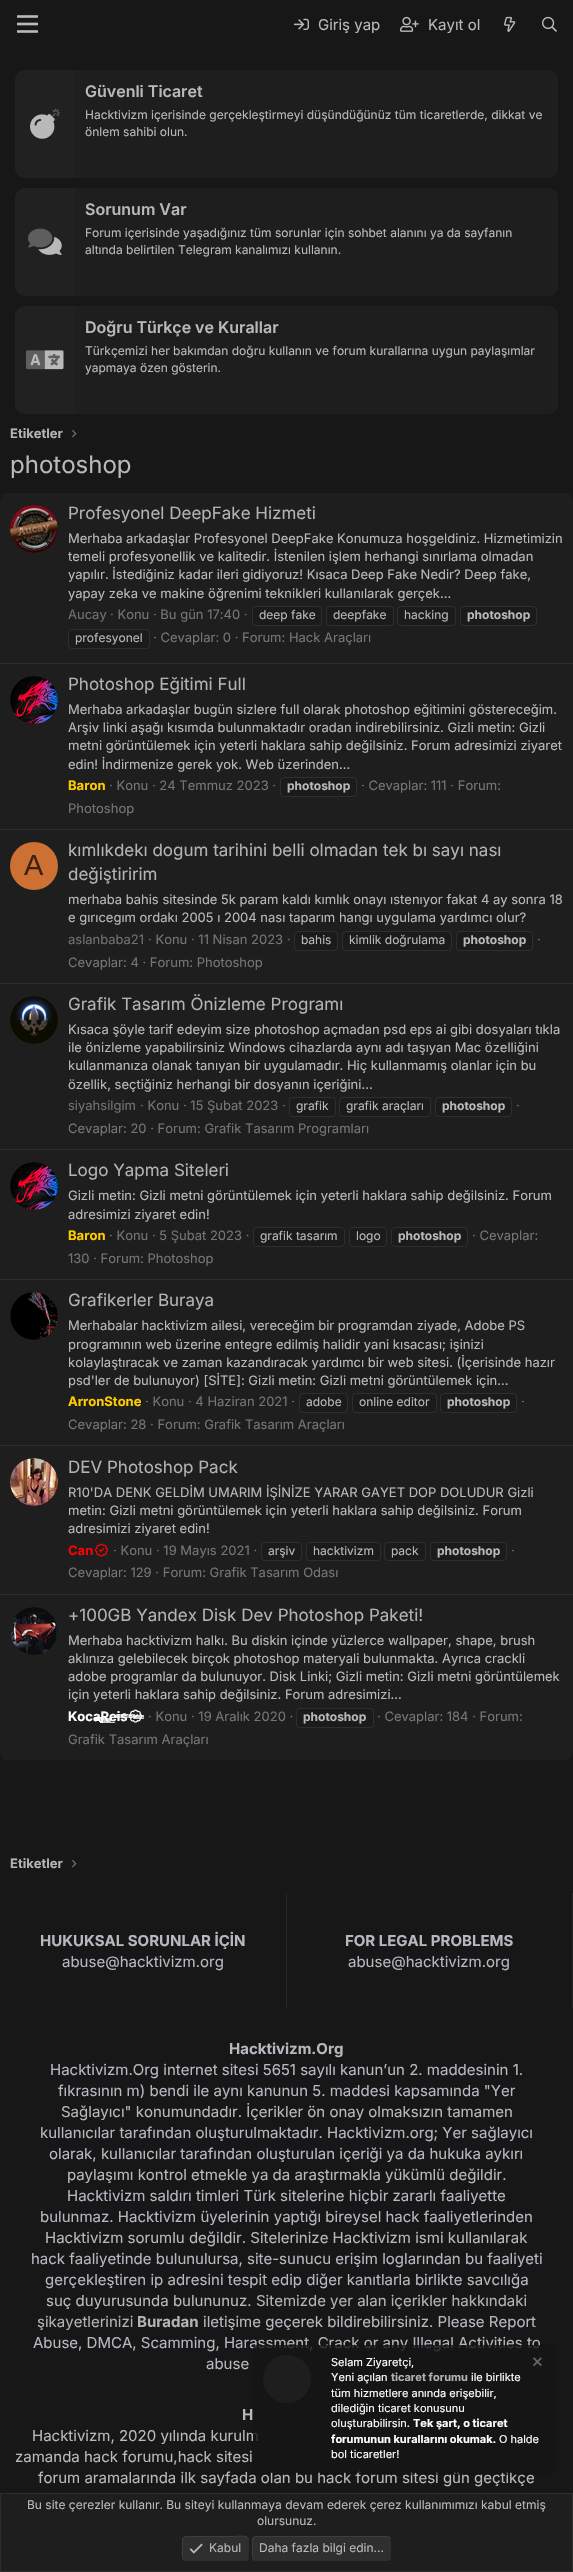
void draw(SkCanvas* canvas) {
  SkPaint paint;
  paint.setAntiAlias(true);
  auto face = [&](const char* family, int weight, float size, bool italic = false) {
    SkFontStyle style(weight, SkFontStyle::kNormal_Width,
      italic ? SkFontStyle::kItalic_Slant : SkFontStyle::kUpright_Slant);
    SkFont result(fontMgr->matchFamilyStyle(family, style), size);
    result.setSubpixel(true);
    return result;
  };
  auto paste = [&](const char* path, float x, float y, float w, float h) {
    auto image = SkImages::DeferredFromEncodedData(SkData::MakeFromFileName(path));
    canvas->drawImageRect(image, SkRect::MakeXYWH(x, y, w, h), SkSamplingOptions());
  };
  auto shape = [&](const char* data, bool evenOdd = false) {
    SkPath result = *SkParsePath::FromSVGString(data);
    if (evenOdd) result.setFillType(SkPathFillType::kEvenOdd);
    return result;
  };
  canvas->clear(0xff171717);
  paste("img/1.png", 17, 15, 21, 18);
  paste("img/2.png", 294, 18, 15, 12);
  paste("img/3.png", 400, 16, 19, 16);
  paste("img/4.png", 504, 16, 12, 16);
  paste("img/5.png", 542, 16, 15, 16);
  paint.setColor(0xff212121);
  canvas->drawRoundRect(SkRect::MakeXYWH(15, 70, 543, 108), 10, 10, paint);
  paste("img/7.png", 30, 114, 25, 25);
  paste("img/6.png", 52, 108, 8, 9);
  paint.setColor(0xff1f1e1e);
  canvas->drawPath(shape("M75 70H548C553.5 70 558 74.5 558 80V168C558 173.5 553.5 178 548 178H75Z"), paint);
  paint.setColor(0xff212121);
  canvas->drawRoundRect(SkRect::MakeXYWH(15, 188, 543, 108), 10, 10, paint);
  paste("img/9.png", 38, 236, 24, 19);
  paste("img/8.png", 28, 228, 25, 20);
  paint.setColor(0xff1f1e1e);
  canvas->drawPath(shape("M75 188H548C553.5 188 558 192.5 558 198V286C558 291.5 553.5 296 548 296H75Z"), paint);
  paint.setColor(0xff212121);
  canvas->drawRoundRect(SkRect::MakeXYWH(15, 306, 543, 108), 10, 10, paint);
  paste("img/11.png", 30, 350, 34, 20);
  paste("img/10.png", 26, 350, 34, 20);
  paint.setColor(0xff1f1e1e);
  canvas->drawPath(shape("M75 306H548C553.5 306 558 310.5 558 316V404C558 409.5 553.5 414 548 414H75Z"), paint);
  paste("img/12.png", 72, 430, 5, 8);
  canvas->drawRoundRect(SkRect::MakeXYWH(0, 492, 573, 1269), 10, 10, paint);
  paint.setColor(0xff171717);
  canvas->drawRect(SkRect::MakeXYWH(5, 492, 563, 1), paint);
  canvas->drawRect(SkRect::MakeXYWH(5, 1760, 563, 1), paint);
  paste("img/13.png", 10, 505, 48, 48);
  paint.setColor(0xff1b1b1b);
  canvas->drawRoundRect(SkRect::MakeXYWH(252.5f, 606.5f, 69, 19), 3.5f, 3.5f, paint);
  paint.setStroke(true);
  paint.setStrokeWidth(1);
  paint.setColor(0xff2e2e2e);
  canvas->drawRoundRect(SkRect::MakeXYWH(252.5f, 606.5f, 69, 19), 3.5f, 3.5f, paint);
  paint.setStroke(false);
  paint.setColor(0xff1b1b1b);
  canvas->drawRoundRect(SkRect::MakeXYWH(326.5f, 606.5f, 67, 19), 3.5f, 3.5f, paint);
  paint.setStroke(true);
  paint.setColor(0xff2e2e2e);
  canvas->drawRoundRect(SkRect::MakeXYWH(326.5f, 606.5f, 67, 19), 3.5f, 3.5f, paint);
  paint.setStroke(false);
  paint.setColor(0xff1b1b1b);
  canvas->drawRoundRect(SkRect::MakeXYWH(397.5f, 606.5f, 58, 19), 3.5f, 3.5f, paint);
  paint.setStroke(true);
  paint.setColor(0xff2e2e2e);
  canvas->drawRoundRect(SkRect::MakeXYWH(397.5f, 606.5f, 58, 19), 3.5f, 3.5f, paint);
  paint.setStroke(false);
  paint.setColor(0xff1b1b1b);
  canvas->drawRoundRect(SkRect::MakeXYWH(460.5f, 606.5f, 76, 19), 3.5f, 3.5f, paint);
  paint.setStroke(true);
  paint.setColor(0xff2e2e2e);
  canvas->drawRoundRect(SkRect::MakeXYWH(460.5f, 606.5f, 76, 19), 3.5f, 3.5f, paint);
  paint.setStroke(false);
  paint.setColor(0xff1b1b1b);
  canvas->drawRoundRect(SkRect::MakeXYWH(68.5f, 629.5f, 81, 19), 3.5f, 3.5f, paint);
  paint.setStroke(true);
  paint.setColor(0xff2e2e2e);
  canvas->drawRoundRect(SkRect::MakeXYWH(68.5f, 629.5f, 81, 19), 3.5f, 3.5f, paint);
  paint.setStroke(false);
  canvas->drawRect(SkRect::MakeXYWH(0, 663, 573, 1), paint);
  paste("img/14.png", 10, 676, 48, 48);
  paint.setColor(0xff1b1b1b);
  canvas->drawRoundRect(SkRect::MakeXYWH(280.5f, 777.5f, 76, 19), 3.5f, 3.5f, paint);
  paint.setStroke(true);
  paint.setColor(0xff2e2e2e);
  canvas->drawRoundRect(SkRect::MakeXYWH(280.5f, 777.5f, 76, 19), 3.5f, 3.5f, paint);
  paint.setStroke(false);
  canvas->drawRect(SkRect::MakeXYWH(0, 829, 573, 1), paint);
  paint.setColor(0xffcc7033);
  canvas->drawCircle(34, 866, 24, paint);
  paint.setColor(0xff1b1b1b);
  canvas->drawRoundRect(SkRect::MakeXYWH(294.5f, 931.5f, 43, 19), 3.5f, 3.5f, paint);
  paint.setStroke(true);
  paint.setColor(0xff2e2e2e);
  canvas->drawRoundRect(SkRect::MakeXYWH(294.5f, 931.5f, 43, 19), 3.5f, 3.5f, paint);
  paint.setStroke(false);
  paint.setColor(0xff1b1b1b);
  canvas->drawRoundRect(SkRect::MakeXYWH(342.5f, 931.5f, 109, 19), 3.5f, 3.5f, paint);
  paint.setStroke(true);
  paint.setColor(0xff2e2e2e);
  canvas->drawRoundRect(SkRect::MakeXYWH(342.5f, 931.5f, 109, 19), 3.5f, 3.5f, paint);
  paint.setStroke(false);
  paint.setColor(0xff1b1b1b);
  canvas->drawRoundRect(SkRect::MakeXYWH(456.5f, 931.5f, 76, 19), 3.5f, 3.5f, paint);
  paint.setStroke(true);
  paint.setColor(0xff2e2e2e);
  canvas->drawRoundRect(SkRect::MakeXYWH(456.5f, 931.5f, 76, 19), 3.5f, 3.5f, paint);
  paint.setStroke(false);
  canvas->drawRect(SkRect::MakeXYWH(0, 983, 573, 1), paint);
  paste("img/15.png", 10, 996, 48, 48);
  paint.setColor(0xff1b1b1b);
  canvas->drawRoundRect(SkRect::MakeXYWH(289.5f, 1097.5f, 46, 19), 3.5f, 3.5f, paint);
  paint.setStroke(true);
  paint.setColor(0xff2e2e2e);
  canvas->drawRoundRect(SkRect::MakeXYWH(289.5f, 1097.5f, 46, 19), 3.5f, 3.5f, paint);
  paint.setStroke(false);
  paint.setColor(0xff1b1b1b);
  canvas->drawRoundRect(SkRect::MakeXYWH(339.5f, 1097.5f, 91, 19), 3.5f, 3.5f, paint);
  paint.setStroke(true);
  paint.setColor(0xff2e2e2e);
  canvas->drawRoundRect(SkRect::MakeXYWH(339.5f, 1097.5f, 91, 19), 3.5f, 3.5f, paint);
  paint.setStroke(false);
  paint.setColor(0xff1b1b1b);
  canvas->drawRoundRect(SkRect::MakeXYWH(435.5f, 1097.5f, 76, 19), 3.5f, 3.5f, paint);
  paint.setStroke(true);
  paint.setColor(0xff2e2e2e);
  canvas->drawRoundRect(SkRect::MakeXYWH(435.5f, 1097.5f, 76, 19), 3.5f, 3.5f, paint);
  paint.setStroke(false);
  canvas->drawRect(SkRect::MakeXYWH(0, 1149, 573, 1), paint);
  paste("img/14.png", 10, 1162, 48, 48);
  paint.setColor(0xff1b1b1b);
  canvas->drawRoundRect(SkRect::MakeXYWH(253.5f, 1227.5f, 91, 19), 3.5f, 3.5f, paint);
  paint.setStroke(true);
  paint.setColor(0xff2e2e2e);
  canvas->drawRoundRect(SkRect::MakeXYWH(253.5f, 1227.5f, 91, 19), 3.5f, 3.5f, paint);
  paint.setStroke(false);
  paint.setColor(0xff1b1b1b);
  canvas->drawRoundRect(SkRect::MakeXYWH(349.5f, 1227.5f, 37, 19), 3.5f, 3.5f, paint);
  paint.setStroke(true);
  paint.setColor(0xff2e2e2e);
  canvas->drawRoundRect(SkRect::MakeXYWH(349.5f, 1227.5f, 37, 19), 3.5f, 3.5f, paint);
  paint.setStroke(false);
  paint.setColor(0xff1b1b1b);
  canvas->drawRoundRect(SkRect::MakeXYWH(391.5f, 1227.5f, 76, 19), 3.5f, 3.5f, paint);
  paint.setStroke(true);
  paint.setColor(0xff2e2e2e);
  canvas->drawRoundRect(SkRect::MakeXYWH(391.5f, 1227.5f, 76, 19), 3.5f, 3.5f, paint);
  paint.setStroke(false);
  canvas->drawRect(SkRect::MakeXYWH(0, 1279, 573, 1), paint);
  paste("img/16.png", 10, 1292, 48, 48);
  paint.setColor(0xff1b1b1b);
  canvas->drawRoundRect(SkRect::MakeXYWH(299.5f, 1393.5f, 48, 19), 3.5f, 3.5f, paint);
  paint.setStroke(true);
  paint.setColor(0xff2e2e2e);
  canvas->drawRoundRect(SkRect::MakeXYWH(299.5f, 1393.5f, 48, 19), 3.5f, 3.5f, paint);
  paint.setStroke(false);
  paint.setColor(0xff1b1b1b);
  canvas->drawRoundRect(SkRect::MakeXYWH(352.5f, 1393.5f, 84, 19), 3.5f, 3.5f, paint);
  paint.setStroke(true);
  paint.setColor(0xff2e2e2e);
  canvas->drawRoundRect(SkRect::MakeXYWH(352.5f, 1393.5f, 84, 19), 3.5f, 3.5f, paint);
  paint.setStroke(false);
  paint.setColor(0xff1b1b1b);
  canvas->drawRoundRect(SkRect::MakeXYWH(440.5f, 1393.5f, 76, 19), 3.5f, 3.5f, paint);
  paint.setStroke(true);
  paint.setColor(0xff2e2e2e);
  canvas->drawRoundRect(SkRect::MakeXYWH(440.5f, 1393.5f, 76, 19), 3.5f, 3.5f, paint);
  paint.setStroke(false);
  canvas->drawRect(SkRect::MakeXYWH(0, 1445, 573, 1), paint);
  paste("img/17.png", 10, 1458, 48, 48);
  paste("img/18.png", 95, 1543, 13, 14);
  paint.setColor(0xff1b1b1b);
  canvas->drawRoundRect(SkRect::MakeXYWH(261.5f, 1542.5f, 40, 18), 3.5f, 3.5f, paint);
  paint.setStroke(true);
  paint.setColor(0xff2e2e2e);
  canvas->drawRoundRect(SkRect::MakeXYWH(261.5f, 1542.5f, 40, 18), 3.5f, 3.5f, paint);
  paint.setStroke(false);
  paint.setColor(0xff1b1b1b);
  canvas->drawRoundRect(SkRect::MakeXYWH(306.5f, 1542.5f, 74, 18), 3.5f, 3.5f, paint);
  paint.setStroke(true);
  paint.setColor(0xff2e2e2e);
  canvas->drawRoundRect(SkRect::MakeXYWH(306.5f, 1542.5f, 74, 18), 3.5f, 3.5f, paint);
  paint.setStroke(false);
  paint.setColor(0xff1b1b1b);
  canvas->drawRoundRect(SkRect::MakeXYWH(384.5f, 1542.5f, 41, 18), 3.5f, 3.5f, paint);
  paint.setStroke(true);
  paint.setColor(0xff2e2e2e);
  canvas->drawRoundRect(SkRect::MakeXYWH(384.5f, 1542.5f, 41, 18), 3.5f, 3.5f, paint);
  paint.setStroke(false);
  paint.setColor(0xff1b1b1b);
  canvas->drawRoundRect(SkRect::MakeXYWH(430.5f, 1542.5f, 76, 18), 3.5f, 3.5f, paint);
  paint.setStroke(true);
  paint.setColor(0xff2e2e2e);
  canvas->drawRoundRect(SkRect::MakeXYWH(430.5f, 1542.5f, 76, 18), 3.5f, 3.5f, paint);
  paint.setStroke(false);
  canvas->drawRect(SkRect::MakeXYWH(0, 1594, 573, 1), paint);
  paste("img/19.png", 10, 1607, 48, 48);
  paste("img/20.png", 94, 1713, 50, 10);
  paste("img/21.png", 129, 1709, 13, 14);
  paint.setColor(0xff1b1b1b);
  canvas->drawRoundRect(SkRect::MakeXYWH(296.5f, 1708.5f, 77, 19), 3.5f, 3.5f, paint);
  paint.setStroke(true);
  paint.setColor(0xff2e2e2e);
  canvas->drawRoundRect(SkRect::MakeXYWH(296.5f, 1708.5f, 77, 19), 3.5f, 3.5f, paint);
  paste("img/12.png", 72, 1860, 5, 8);
  paint.setStroke(false);
  paint.setColor(0xff262626);
  canvas->drawRect(SkRect::MakeXYWH(286, 1893, 1, 115), paint);
  canvas->drawRect(SkRect::MakeXYWH(572, 1893, 1, 115), paint);
  canvas->save();
  canvas->clipPath(shape("M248 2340H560V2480H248ZM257 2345H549C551 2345 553 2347 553 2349V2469C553 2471 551 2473 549 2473H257C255 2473 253 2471 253 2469V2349C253 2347 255 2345 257 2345Z", true), true);
  paint.setColor(0x40000000);
  paint.setMaskFilter(SkMaskFilter::MakeBlur(kNormal_SkBlurStyle, 1.5f));
  canvas->drawRoundRect(SkRect::MakeXYWH(254, 2346, 300, 128), 4, 4, paint);
  paint.setMaskFilter(nullptr);
  canvas->restore();
  paint.setColor(0xff1f1e1e);
  canvas->drawRect(SkRect::MakeXYWH(0.5f, 2493.5f, 572, 78), paint);
  paint.setStroke(true);
  paint.setColor(0xff2e2e2e);
  canvas->drawRect(SkRect::MakeXYWH(0.5f, 2493.5f, 572, 78), paint);
  paint.setStroke(false);
  paint.setColor(0xff2f2f2f);
  canvas->drawRoundRect(SkRect::MakeXYWH(182, 2536, 67, 25), 4, 4, paint);
  paint.setStroke(true);
  paint.setColor(0xa62b2b2b);
  canvas->drawPath(shape("M247.5 2537.5C249.5 2540 248.5 2546 248.5 2548.5C248.5 2562 249.5 2560.5 235 2560.5H196C196 2560.5 186 2562 183.5 2559.5"), paint);
  paint.setColor(0xa6454545);
  canvas->drawPath(shape("M183.5 2559.5C181.5 2557 182.5 2551 182.5 2548.5C182.5 2535 181.5 2536.5 196 2536.5H235C235 2536.5 245 2535 247.5 2537.5"), paint);
  paste("img/23.png", 189, 2543, 14, 11);
  paint.setStroke(false);
  paint.setColor(0xff2f2f2f);
  canvas->drawRoundRect(SkRect::MakeXYWH(252, 2536, 139, 25), 4, 4, paint);
  paint.setStroke(true);
  paint.setColor(0xa6454545);
  canvas->drawPath(shape("M253.5 2559.5C251.5 2557 252.5 2548.5 252.5 2545.5C252.5 2543 251.5 2536.5 256 2536.5H387L389.5 2537.5"), paint);
  auto f0 = face("Inter", 400, 15);
  paint.setStroke(false);
  paint.setColor(0xffbab8b8);
  canvas->drawString("Giriş yap", 318, 30, f0, paint);
  canvas->drawString("Kayıt ol", 428, 30, f0, paint);
  auto f1 = face("Inter", 600, 16);
  canvas->drawString("Güvenli Ticaret", 85, 97, f1, paint);
  auto f2 = face("Inter", 400, 12);
  canvas->drawString("Hacktivizm içerisinde gerçekleştirmeyi düşündüğünüz tüm ticaretlerde, dikkat ve", 85, 119, f2, paint);
  canvas->drawString("önlem sahibi olun.", 85, 136, f2, paint);
  canvas->drawString("Sorunum Var", 85, 215, f1, paint);
  canvas->drawString("Forum içerisinde yaşadığınız tüm sorunlar için sohbet alanını ya da sayfanın", 85, 237, f2, paint);
  canvas->drawString("altında belirtilen Telegram kanalımızı kullanın.", 85, 254, f2, paint);
  canvas->drawString("Doğru Türkçe ve Kurallar", 85, 333, f1, paint);
  canvas->drawString("Türkçemizi her bakımdan doğru kullanın ve forum kurallarına uygun paylaşımlar", 85, 355, f2, paint);
  canvas->drawString("yapmaya özen gösterin.", 85, 372, f2, paint);
  auto f3 = face("Inter", 700, 13);
  paint.setColor(0xffb6b2b2);
  canvas->drawString("Etiketler", 10, 438, f3, paint);
  auto f4 = face("Inter", 400, 24);
  paint.setColor(0xffbab8b8);
  canvas->drawString("photoshop", 10, 473, f4, paint);
  auto f5 = face("Inter", 400, 17);
  paint.setColor(0xffb6b2b2);
  canvas->drawString("Profesyonel DeepFake Hizmeti", 68, 519, f5, paint);
  auto f6 = face("Inter", 400, 13);
  paint.setColor(0xffbab8b8);
  {
    const struct { const char* s; float x, y; } items[] = {
      {"Merhaba arkadaşlar Profesyonel DeepFake Konumuza hoşgeldiniz. Hizmetimizin", 68, 543},
      {"temeli profesyonellik ve kalitedir. İstenilen işlem herhangi sınırlama olmadan", 68, 561},
      {"yapılır. İstediğiniz kadar ileri gidiyoruz! Kısaca Deep Fake Nedir? Deep fake,", 68, 579},
      {"yapay zeka ve makine öğrenimi teknikleri kullanılarak gerçek...", 68, 598},
    };
    for (auto [s, x, y] : items) {
      canvas->drawString(s, x, y, f6, paint);
    }
  }
  paint.setColor(0xff707070);
  canvas->drawString("Aucay", 68, 619, f6, paint);
  paint.setColor(0xffbab8b8);
  {
    const struct { const char* s; float x, y; } items[] = {
      {"deep fake", 259, 619},
      {"deepfake", 333, 619},
      {"hacking", 404, 619},
    };
    for (auto [s, x, y] : items) {
      canvas->drawString(s, x, y, f2, paint);
    }
  }
  auto f7 = face("Inter", 700, 12);
  canvas->drawString("photoshop", 467, 619, f7, paint);
  canvas->drawString("profesyonel", 75, 642, f2, paint);
  paint.setColor(0xff767474);
  canvas->drawString("· Konu · Bu gün 17:40 ·", 110, 619, f6, paint);
  canvas->drawString("· Cevaplar: 0 · Forum: Hack Araçları", 153, 642, f6, paint);
  paint.setColor(0xffb6b2b2);
  canvas->drawString("Photoshop Eğitimi Full", 68, 690, f5, paint);
  paint.setColor(0xffbab8b8);
  {
    const struct { const char* s; float x, y; } items[] = {
      {"Merhaba arkadaşlar bugün sizlere full olarak photoshop eğitimini göstereceğim.", 68, 714},
      {"Arşiv linki aşağı kısımda bulunmaktadır oradan indirebilirsiniz. Gizli metin: Gizli", 68, 732},
      {"metni görüntülemek için yeterli haklara sahip değilsiniz. Forum adresimizi ziyaret", 68, 750},
      {"edin! İndirmenize gerek yok. Web üzerinden...", 68, 769},
    };
    for (auto [s, x, y] : items) {
      canvas->drawString(s, x, y, f6, paint);
    }
  }
  paint.setColor(0xffffcb00);
  canvas->drawString("Baron", 68, 790, f3, paint);
  paint.setColor(0xff767474);
  canvas->drawString("· Konu · 24 Temmuz 2023 ·", 109, 790, f6, paint);
  paint.setColor(0xffbab8b8);
  canvas->drawString("photoshop", 287, 790, f7, paint);
  paint.setColor(0xff767474);
  canvas->drawString("· Cevaplar: 111 · Forum:", 361, 790, f6, paint);
  canvas->drawString("Photoshop", 68, 813, f6, paint);
  auto f8 = face("Liberation Sans", 400, 29);
  paint.setColor(0xff3d220f);
  canvas->drawString("A", 24, 875, f8, paint);
  paint.setColor(0xffb6b2b2);
  canvas->drawString("kımlıkdekı dogum tarihini belli olmadan tek bı sayı nası", 68, 856, f5, paint);
  canvas->drawString("değiştiririm", 68, 880, f5, paint);
  paint.setColor(0xffbab8b8);
  canvas->drawString("merhaba bahis sitesinde 5k param kaldı kımlık onayı ıstenıyor fakat 4 ay sonra 18", 68, 904, f6, paint);
  canvas->drawString("e gırıcegım ordakı 2005 ı 2004 nası taparım hangı uygulama yardımcı olur?", 68, 922, f6, paint);
  paint.setColor(0xff707070);
  canvas->drawString("aslanbaba21", 68, 944, f6, paint);
  paint.setColor(0xff767474);
  canvas->drawString("· Konu · 11 Nisan 2023 ·", 148, 944, f6, paint);
  paint.setColor(0xffbab8b8);
  canvas->drawString("bahis", 301, 944, f2, paint);
  canvas->drawString("kimlik doğrulama", 349, 944, f2, paint);
  canvas->drawString("photoshop", 463, 944, f7, paint);
  paint.setColor(0xff767474);
  canvas->drawString("·", 537, 944, f6, paint);
  canvas->drawString("Cevaplar: 4 · Forum: Photoshop", 68, 967, f6, paint);
  paint.setColor(0xffb6b2b2);
  canvas->drawString("Grafik Tasarım Önizleme Programı", 68, 1010, f5, paint);
  paint.setColor(0xffbab8b8);
  {
    const struct { const char* s; float x, y; } items[] = {
      {"Kısaca şöyle tarif edeyim size photoshop açmadan psd eps ai gibi dosyaları tıkla", 68, 1034},
      {"ile önizleme yapabilirsiniz Windows cihazlarda aynı adı taşıyan Mac özelliğini", 68, 1052},
      {"kullanmanıza olanak tanıyan bir uygulamadır. Hiç kullanmamış olanlar için bu", 68, 1070},
      {"özellik, seçtiğiniz herhangi bir dosyanın içeriğini...", 68, 1089},
    };
    for (auto [s, x, y] : items) {
      canvas->drawString(s, x, y, f6, paint);
    }
  }
  paint.setColor(0xff707070);
  canvas->drawString("siyahsilgim", 68, 1110, f6, paint);
  paint.setColor(0xff767474);
  canvas->drawString("· Konu · 15 Şubat 2023 ·", 140, 1110, f6, paint);
  paint.setColor(0xffbab8b8);
  canvas->drawString("grafik", 296, 1110, f2, paint);
  canvas->drawString("grafik araçları", 346, 1110, f2, paint);
  canvas->drawString("photoshop", 442, 1110, f7, paint);
  paint.setColor(0xff767474);
  canvas->drawString("·", 516, 1110, f6, paint);
  canvas->drawString("Cevaplar: 20 · Forum: Grafik Tasarım Programları", 68, 1133, f6, paint);
  paint.setColor(0xffb6b2b2);
  canvas->drawString("Logo Yapma Siteleri", 68, 1176, f5, paint);
  paint.setColor(0xffbab8b8);
  canvas->drawString("Gizli metin: Gizli metni görüntülemek için yeterli haklara sahip değilsiniz. Forum", 68, 1200, f6, paint);
  canvas->drawString("adresimizi ziyaret edin!", 68, 1219, f6, paint);
  paint.setColor(0xffffcb00);
  canvas->drawString("Baron", 68, 1240, f3, paint);
  paint.setColor(0xff767474);
  canvas->drawString("· Konu · 5 Şubat 2023 ·", 109, 1240, f6, paint);
  paint.setColor(0xffbab8b8);
  canvas->drawString("grafik tasarım", 260, 1240, f2, paint);
  canvas->drawString("logo", 356, 1240, f2, paint);
  canvas->drawString("photoshop", 398, 1240, f7, paint);
  paint.setColor(0xff767474);
  canvas->drawString("· Cevaplar:", 472, 1240, f6, paint);
  canvas->drawString("130 · Forum: Photoshop", 68, 1263, f6, paint);
  paint.setColor(0xffb6b2b2);
  canvas->drawString("Grafikerler Buraya", 68, 1306, f5, paint);
  paint.setColor(0xffbab8b8);
  {
    const struct { const char* s; float x, y; } items[] = {
      {"Merhabalar hacktivizm ailesi, vereceğim bir programdan ziyade, Adobe PS", 68, 1330},
      {"programının web üzerine entegre edilmiş halidir yani kısacası; işinizi", 68, 1349},
      {"kolaylaştıracak ve zaman kazandıracak yardımcı bir web sitesi. (İçerisinde hazır", 68, 1367},
      {"psd'ler de bulunuyor) [SİTE]: Gizli metin: Gizli metni görüntülemek için...", 68, 1385},
    };
    for (auto [s, x, y] : items) {
      canvas->drawString(s, x, y, f6, paint);
    }
  }
  paint.setColor(0xffffcb00);
  canvas->drawString("ArronStone", 68, 1406, f3, paint);
  paint.setColor(0xff767474);
  canvas->drawString("· Konu · 4 Haziran 2021 ·", 145, 1406, f6, paint);
  paint.setColor(0xffbab8b8);
  canvas->drawString("adobe", 306, 1406, f2, paint);
  canvas->drawString("online editor", 359, 1406, f2, paint);
  canvas->drawString("photoshop", 447, 1406, f7, paint);
  paint.setColor(0xff767474);
  canvas->drawString("·", 521, 1406, f6, paint);
  canvas->drawString("Cevaplar: 28 · Forum: Grafik Tasarım Araçları", 68, 1429, f6, paint);
  paint.setColor(0xffb6b2b2);
  canvas->drawString("DEV Photoshop Pack", 68, 1473, f5, paint);
  paint.setColor(0xffbab8b8);
  {
    const struct { const char* s; float x, y; } items[] = {
      {"R10'DA DENK GELDİM UMARIM İŞİNİZE YARAR GAYET DOP DOLUDUR Gizli", 68, 1497},
      {"metin: Gizli metni görüntülemek için yeterli haklara sahip değilsiniz. Forum", 68, 1515},
      {"adresimizi ziyaret edin!", 68, 1533},
    };
    for (auto [s, x, y] : items) {
      canvas->drawString(s, x, y, f6, paint);
    }
  }
  paint.setColor(0xffff0000);
  canvas->drawString("Can", 68, 1555, f3, paint);
  paint.setColor(0xff767474);
  canvas->drawString("· Konu · 19 Mayıs 2021 ·", 113, 1555, f6, paint);
  paint.setColor(0xffbab8b8);
  {
    const struct { const char* s; float x, y; } items[] = {
      {"arşiv", 268, 1555},
      {"hacktivizm", 313, 1555},
      {"pack", 391, 1555},
    };
    for (auto [s, x, y] : items) {
      canvas->drawString(s, x, y, f2, paint);
    }
  }
  canvas->drawString("photoshop", 437, 1555, f7, paint);
  paint.setColor(0xff767474);
  canvas->drawString("·", 511, 1555, f6, paint);
  canvas->drawString("Cevaplar: 129 · Forum: Grafik Tasarım Odası", 68, 1577, f6, paint);
  paint.setColor(0xffb6b2b2);
  canvas->drawString("+100GB Yandex Disk Dev Photoshop Paketi!", 68, 1621, f5, paint);
  paint.setColor(0xffbab8b8);
  {
    const struct { const char* s; float x, y; } items[] = {
      {"Merhaba hacktivizm halkı. Bu diskin içinde yüzlerce wallpaper, shape, brush", 68, 1645},
      {"aklınıza gelebilecek birçok photoshop materyali bulunmakta. Ayrıca crackli", 68, 1663},
      {"adobe programlar da bulunuyor. Disk Linki; Gizli metin: Gizli metni görüntülemek", 68, 1681},
      {"için yeterli haklara sahip değilsiniz. Forum adresimizi...", 68, 1699},
    };
    for (auto [s, x, y] : items) {
      canvas->drawString(s, x, y, f6, paint);
    }
  }
  paint.setColor(0xffffffff);
  canvas->drawString("KocaReis", 68, 1721, f3, paint);
  paint.setColor(0xff767474);
  canvas->drawString("· Konu · 19 Aralık 2020 ·", 148, 1721, f6, paint);
  paint.setColor(0xffbab8b8);
  canvas->drawString("photoshop", 303, 1721, f7, paint);
  paint.setColor(0xff767474);
  canvas->drawString("· Cevaplar: 184 · Forum:", 377, 1721, f6, paint);
  canvas->drawString("Grafik Tasarım Araçları", 68, 1744, f6, paint);
  paint.setColor(0xffb6b2b2);
  canvas->drawString("Etiketler", 10, 1868, f3, paint);
  auto f9 = face("Inter", 700, 15);
  paint.setColor(0xffb7b7c0);
  canvas->drawString("HUKUKSAL SORUNLAR İÇİN", 40, 1946, f9, paint);
  canvas->drawString("abuse@hacktivizm.org", 62, 1967, f0, paint);
  canvas->drawString("FOR LEGAL PROBLEMS", 345, 1946, f9, paint);
  canvas->drawString("abuse@hacktivizm.org", 348, 1967, f0, paint);
  canvas->drawString("Hacktivizm.Org", 229, 2054, f9, paint);
  {
    const struct { const char* s; float x, y; } items[] = {
      {"Hacktivizm.Org internet sitesi 5651 sayılı kanun’un 2. maddesinin 1.", 50, 2075},
      {"fıkrasının m) bendi ile aynı kanunun 5. maddesi kapsamında \"Yer", 58, 2096},
      {"Sağlayıcı\" konumundadır. İçerikler ön onay olmaksızın tamamen", 61, 2117},
      {"kullanıcılar tarafından oluşturulmaktadır. Hacktivizm.org; Yer sağlayıcı", 40, 2138},
      {"olarak, kullanıcılar tarafından oluşturulan içeriği ya da hukuka aykırı", 49, 2159},
      {"paylaşımı kontrol etmekle ya da araştırmakla yükümlü değildir.", 67, 2180},
      {"Hacktivizm saldırı timleri Türk sitelerine hiçbir zararlı faaliyette", 67, 2201},
      {"bulunmaz. Hacktivizm üyelerinin yaptığı bireysel hack faaliyetlerinden", 40, 2222},
      {"Hacktivizm sorumlu değildir. Sitelerinize Hacktivizm ismi kullanılarak", 45, 2243},
      {"hack faaliyetinde bulunulursa, site-sunucu erişim loglarından bu faaliyeti", 31, 2264},
      {"gerçekleştiren ip adresini tespit edip diğer kanıtlarla birlikte savcılığa", 45, 2285},
      {"suç duyurusunda bulununuz.", 46, 2306},
    };
    for (auto [s, x, y] : items) {
      canvas->drawString(s, x, y, f0, paint);
    }
  }
  paint.setColor(0xffb6b2b2);
  canvas->drawString("Sitemizde yer alan içerikler hakkındaki", 256, 2306, f0, paint);
  canvas->drawString("şikayetlerinizi", 37, 2327, f0, paint);
  canvas->drawString("Buradan", 137, 2327, f9, paint);
  paint.setColor(0xffb7b7c0);
  {
    const struct { const char* s; float x, y; } items[] = {
      {"iletişime geçerek bildirebilirsiniz. Please Report", 203, 2327},
      {"Abuse, DMCA, Scamming, Harassment, Crack or any Illegal Activities to", 33, 2348},
      {"abuse", 206, 2369},
    };
    for (auto [s, x, y] : items) {
      canvas->drawString(s, x, y, f0, paint);
    }
  }
  paint.setColor(0xffbab8b8);
  canvas->drawString("H", 242, 2420, f9, paint);
  {
    const struct { const char* s; float x, y; } items[] = {
      {"Hacktivizm, 2020 yılında kurulm", 32, 2441},
      {"zamanda hack forumu,hack sitesi", 15, 2462},
      {"forum aramalarında ilk sayfada olan bu hack forum sitesi gün geçtikçe", 38, 2483},
    };
    for (auto [s, x, y] : items) {
      canvas->drawString(s, x, y, f0, paint);
    }
  }
  paint.setColor(0xcc141414);
  canvas->drawRoundRect(SkRect::MakeXYWH(253, 2345, 300, 128), 4, 4, paint);
  paint.setColor(0xff1f1e1e);
  canvas->drawCircle(287, 2379, 24, paint);
  auto f10 = face("Inter", 400, 11);
  paint.setColor(0xffffffff);
  canvas->drawString("Selam Ziyaretçi,", 331, 2366, f10, paint);
  paste("img/22.png", 533, 2357, 9, 9);
  canvas->drawString("Yeni açılan", 331, 2381, f10, paint);
  auto f11 = face("Inter", 700, 11);
  paint.setColor(0xffb6b2b2);
  canvas->drawString("ticaret forumu", 391, 2381, f11, paint);
  paint.setColor(0xffffffff);
  {
    const struct { const char* s; float x, y; } items[] = {
      {"ile birlikte", 471, 2381},
      {"tüm hizmetlere anında erişebilir,", 331, 2397},
      {"dilediğin ticaret konusunu", 331, 2412},
      {"oluşturabilirsin.", 331, 2427},
    };
    for (auto [s, x, y] : items) {
      canvas->drawString(s, x, y, f10, paint);
    }
  }
  canvas->drawString("Tek şart, o ticaret", 413, 2427, f11, paint);
  canvas->drawString("forumunun kurallarını okumak.", 331, 2443, f11, paint);
  canvas->drawString("O halde", 499, 2443, f10, paint);
  canvas->drawString("bol ticaretler!", 331, 2458, f10, paint);
  paint.setColor(0xffbab8b8);
  {
    const struct { const char* s; float x, y; } items[] = {
      {"Bu site çerezler kullanır. Bu siteyi kullanmaya devam ederek çerez kullanımımızı kabul etmiş", 27, 2509},
      {"olursunuz.", 257, 2525},
      {"Kabul", 209, 2552},
      {"Daha fazla bilgi edin...", 259, 2552},
    };
    for (auto [s, x, y] : items) {
      canvas->drawString(s, x, y, f2, paint);
    }
  }
}
